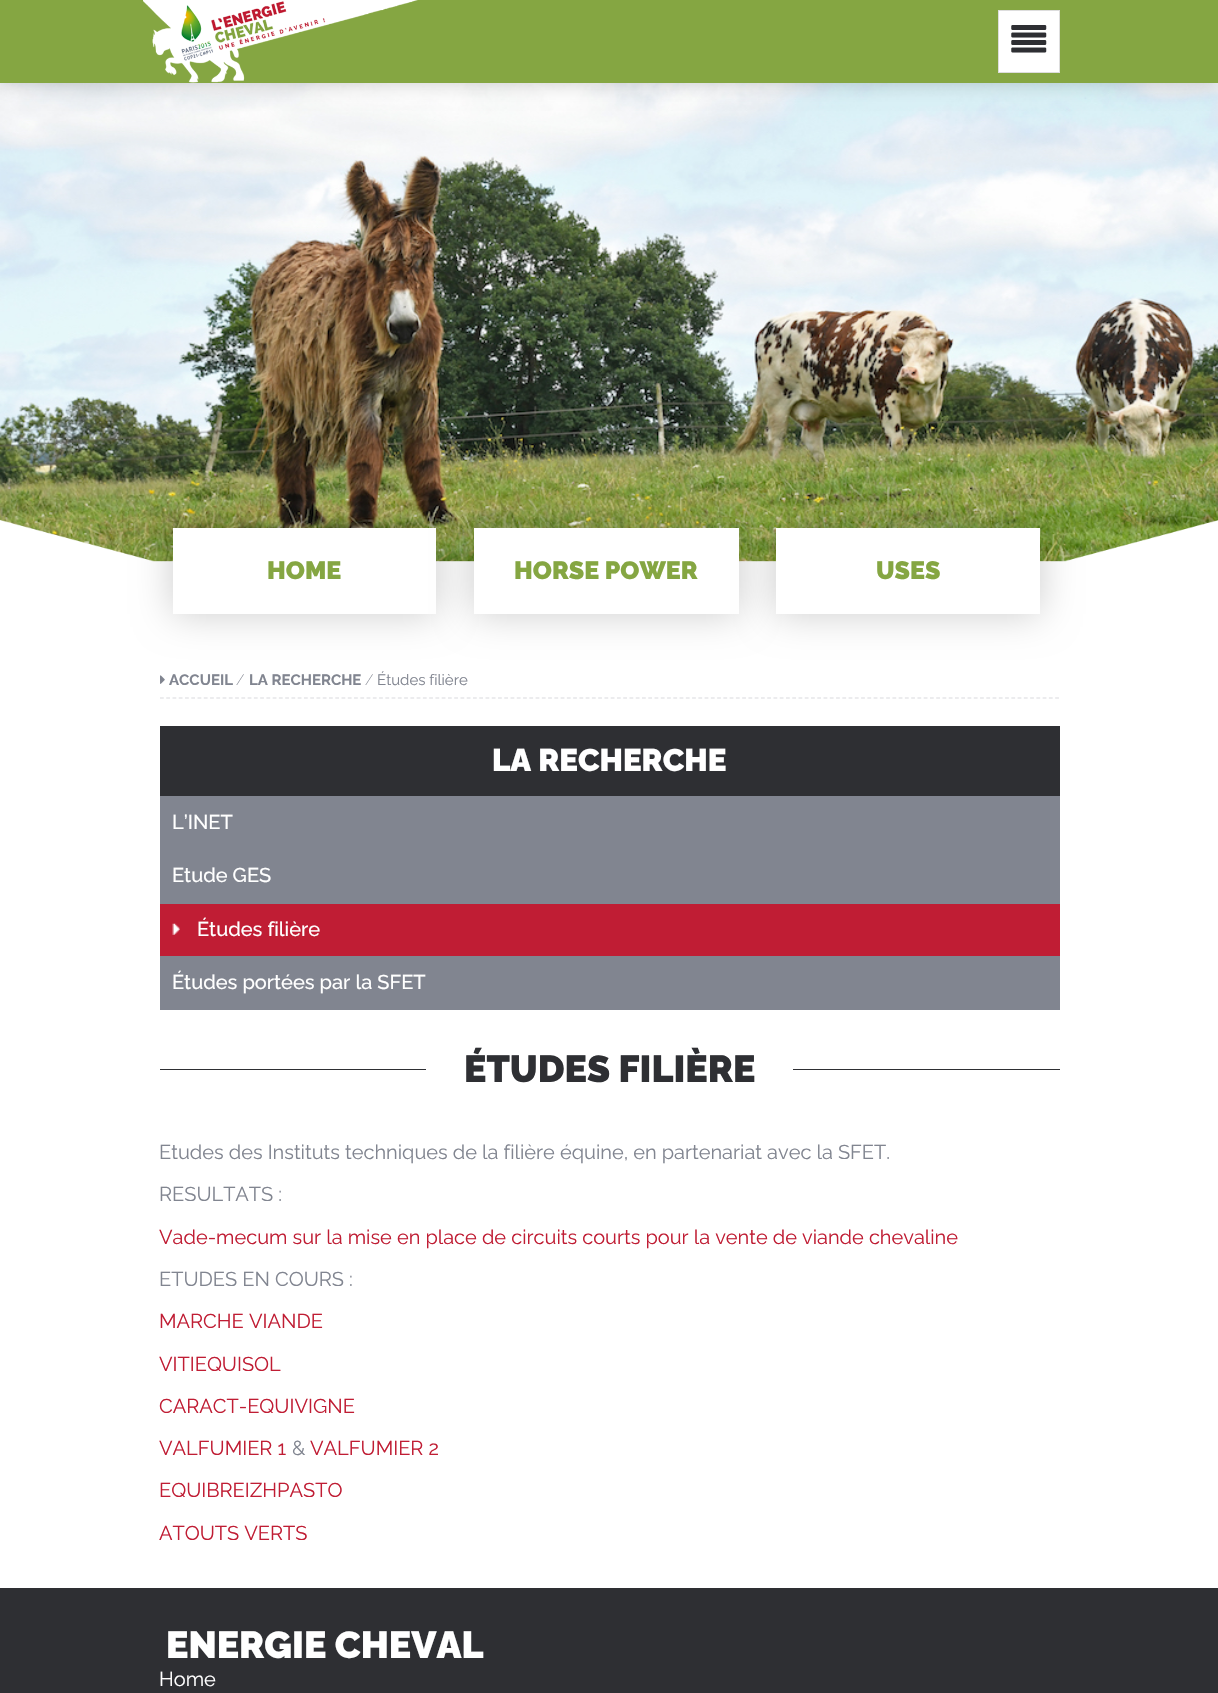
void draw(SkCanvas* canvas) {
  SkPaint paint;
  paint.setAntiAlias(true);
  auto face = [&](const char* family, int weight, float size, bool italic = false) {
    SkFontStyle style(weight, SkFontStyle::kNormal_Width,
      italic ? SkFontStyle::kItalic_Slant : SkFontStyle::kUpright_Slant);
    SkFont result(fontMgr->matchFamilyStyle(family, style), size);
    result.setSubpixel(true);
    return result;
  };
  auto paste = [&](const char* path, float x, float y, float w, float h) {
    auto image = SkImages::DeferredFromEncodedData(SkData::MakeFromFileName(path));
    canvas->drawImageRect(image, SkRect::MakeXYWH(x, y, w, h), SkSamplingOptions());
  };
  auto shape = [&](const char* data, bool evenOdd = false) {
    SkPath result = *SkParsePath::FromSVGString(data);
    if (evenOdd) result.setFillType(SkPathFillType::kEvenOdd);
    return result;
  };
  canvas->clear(0xffffffff);
  paste("img/3.png", 0, 83, 1218, 479);
  paint.setColor(0x33000000);
  paint.setMaskFilter(SkMaskFilter::MakeBlur(kNormal_SkBlurStyle, 9.5f));
  canvas->drawRect(SkRect::MakeXYWH(0, 0, 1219, 83), paint);
  paint.setMaskFilter(nullptr);
  paint.setColor(0xff85a642);
  canvas->drawRect(SkRect::MakeXYWH(0, 0, 1218, 83), paint);
  paste("img/1.png", 143, 0, 275, 83);
  paint.setColor(0xffffffff);
  canvas->drawRect(SkRect::MakeXYWH(998.5f, 10.5f, 61, 62), paint);
  paint.setStroke(true);
  paint.setStrokeWidth(1);
  paint.setColor(0xffdddddd);
  canvas->drawRect(SkRect::MakeXYWH(998.5f, 10.5f, 61, 62), paint);
  paste("img/2.png", 1011, 25, 36, 28);
  paste("img/4.png", 0, 520, 1218, 150);
  paint.setStroke(false);
  paint.setColor(0x33000000);
  paint.setMaskFilter(SkMaskFilter::MakeBlur(kNormal_SkBlurStyle, 19));
  canvas->drawRect(SkRect::MakeXYWH(173, 528, 263, 86), paint);
  paint.setMaskFilter(nullptr);
  paint.setColor(0xffffffff);
  canvas->drawRect(SkRect::MakeXYWH(173, 528, 263, 86), paint);
  paint.setColor(0x33000000);
  paint.setMaskFilter(SkMaskFilter::MakeBlur(kNormal_SkBlurStyle, 19));
  canvas->drawRect(SkRect::MakeXYWH(474, 528, 265, 86), paint);
  paint.setMaskFilter(nullptr);
  paint.setColor(0xffffffff);
  canvas->drawRect(SkRect::MakeXYWH(474, 528, 265, 86), paint);
  paint.setColor(0x33000000);
  paint.setMaskFilter(SkMaskFilter::MakeBlur(kNormal_SkBlurStyle, 19));
  canvas->drawRect(SkRect::MakeXYWH(776, 528, 264, 86), paint);
  paint.setMaskFilter(nullptr);
  paint.setColor(0xffffffff);
  canvas->drawRect(SkRect::MakeXYWH(776, 528, 264, 86), paint);
  paint.setStroke(true);
  paint.setStrokeWidth(1.2f);
  paint.setColor(0xffd9dade);
  paint.setPathEffect(SkDashPathEffect::Make({{3.75f, 2.51f}}, 0));
  canvas->drawPath(shape("M160 698H1060"), paint);
  paint.setPathEffect(nullptr);
  paste("img/5.png", 160, 675, 5, 9);
  paint.setStroke(false);
  {
    const struct { float x, y, w, h; SkColor color; } items[] = {
      {160, 726, 900, 70, 0xff2e2f33},
      {160, 796, 900, 108, 0xff818590},
      {160, 904, 900, 52, 0xffc01d34},
    };
    for (auto [x, y, w, h, color] : items) {
      paint.setColor(color);
      canvas->drawRect(SkRect::MakeXYWH(x, y, w, h), paint);
    }
  }
  paste("img/6.png", 172, 923, 8, 12);
  {
    const struct { float x, y, w, h; SkColor color; } items[] = {
      {160, 956, 900, 54, 0xff818590},
      {160, 1069, 900, 1, 0xff2e2f33},
      {426, 1069, 367, 1, 0xffffffff},
      {0, 1588, 1218, 105, 0xff2e2f33},
    };
    for (auto [x, y, w, h, color] : items) {
      paint.setColor(color);
      canvas->drawRect(SkRect::MakeXYWH(x, y, w, h), paint);
    }
  }
  auto f0 = face("Raleway", 900, 25);
  paint.setColor(0xff85a642);
  {
    const struct { const char* s; float x, y; } items[] = {
      {"HOME", 267, 579},
      {"HORSE POWER", 514, 579},
      {"USES", 876, 579},
    };
    for (auto [s, x, y] : items) {
      canvas->drawString(s, x, y, f0, paint);
    }
  }
  auto f1 = face("Raleway", 700, 15);
  paint.setColor(0xff818590);
  canvas->drawString("ACCUEIL", 169, 685, f1, paint);
  auto f2 = face("Raleway", 200, 15);
  canvas->drawString("/", 236, 685, f2, paint);
  canvas->drawString("LA RECHERCHE", 249, 685, f1, paint);
  canvas->drawString("/", 365, 685, f2, paint);
  auto f3 = face("Raleway", 400, 15);
  canvas->drawString("Études filière", 377, 685, f3, paint);
  auto f4 = face("Raleway", 900, 31.25f);
  paint.setColor(0xffffffff);
  canvas->drawString("LA RECHERCHE", 492, 771, f4, paint);
  auto f5 = face("Raleway", 500, 20);
  {
    const struct { const char* s; float x, y; } items[] = {
      {"L’INET", 172, 829},
      {"Etude GES", 172, 882},
      {"Études filière", 197, 936},
      {"Études portées par la SFET", 172, 989},
    };
    for (auto [s, x, y] : items) {
      canvas->drawString(s, x, y, f5, paint);
    }
  }
  auto f6 = face("Raleway", 900, 37.5f);
  paint.setColor(0xff2e2f33);
  canvas->drawString("ÉTUDES FILIÈRE", 464, 1082, f6, paint);
  auto f7 = face("Raleway", 400, 20);
  paint.setColor(0xff818590);
  canvas->drawString("Etudes des Instituts techniques de la filière équine, en partenariat avec la SFET.", 159, 1159, f7, paint);
  canvas->drawString("RESULTATS :", 159, 1201, f7, paint);
  paint.setColor(0xffc01d34);
  canvas->drawString("Vade-mecum sur la mise en place de circuits courts pour la vente de viande chevaline", 159, 1244, f7, paint);
  paint.setColor(0xff818590);
  canvas->drawString("ETUDES EN COURS :", 159, 1286, f7, paint);
  paint.setColor(0xffc01d34);
  {
    const struct { const char* s; float x, y; } items[] = {
      {"MARCHE VIANDE", 159, 1328},
      {"VITIEQUISOL", 159, 1371},
      {"CARACT-EQUIVIGNE", 159, 1413},
      {"VALFUMIER 1", 159, 1455},
    };
    for (auto [s, x, y] : items) {
      canvas->drawString(s, x, y, f7, paint);
    }
  }
  paint.setColor(0xff818590);
  canvas->drawString("&", 292, 1455, f7, paint);
  paint.setColor(0xffc01d34);
  {
    const struct { const char* s; float x, y; } items[] = {
      {"VALFUMIER 2", 310, 1455},
      {"EQUIBREIZHPASTO", 159, 1497},
      {"ATOUTS VERTS", 159, 1540},
    };
    for (auto [s, x, y] : items) {
      canvas->drawString(s, x, y, f7, paint);
    }
  }
  paint.setColor(0xffffffff);
  canvas->drawString("ENERGIE CHEVAL", 166, 1658, f6, paint);
  canvas->drawString("Home", 159, 1686, f7, paint);
}
